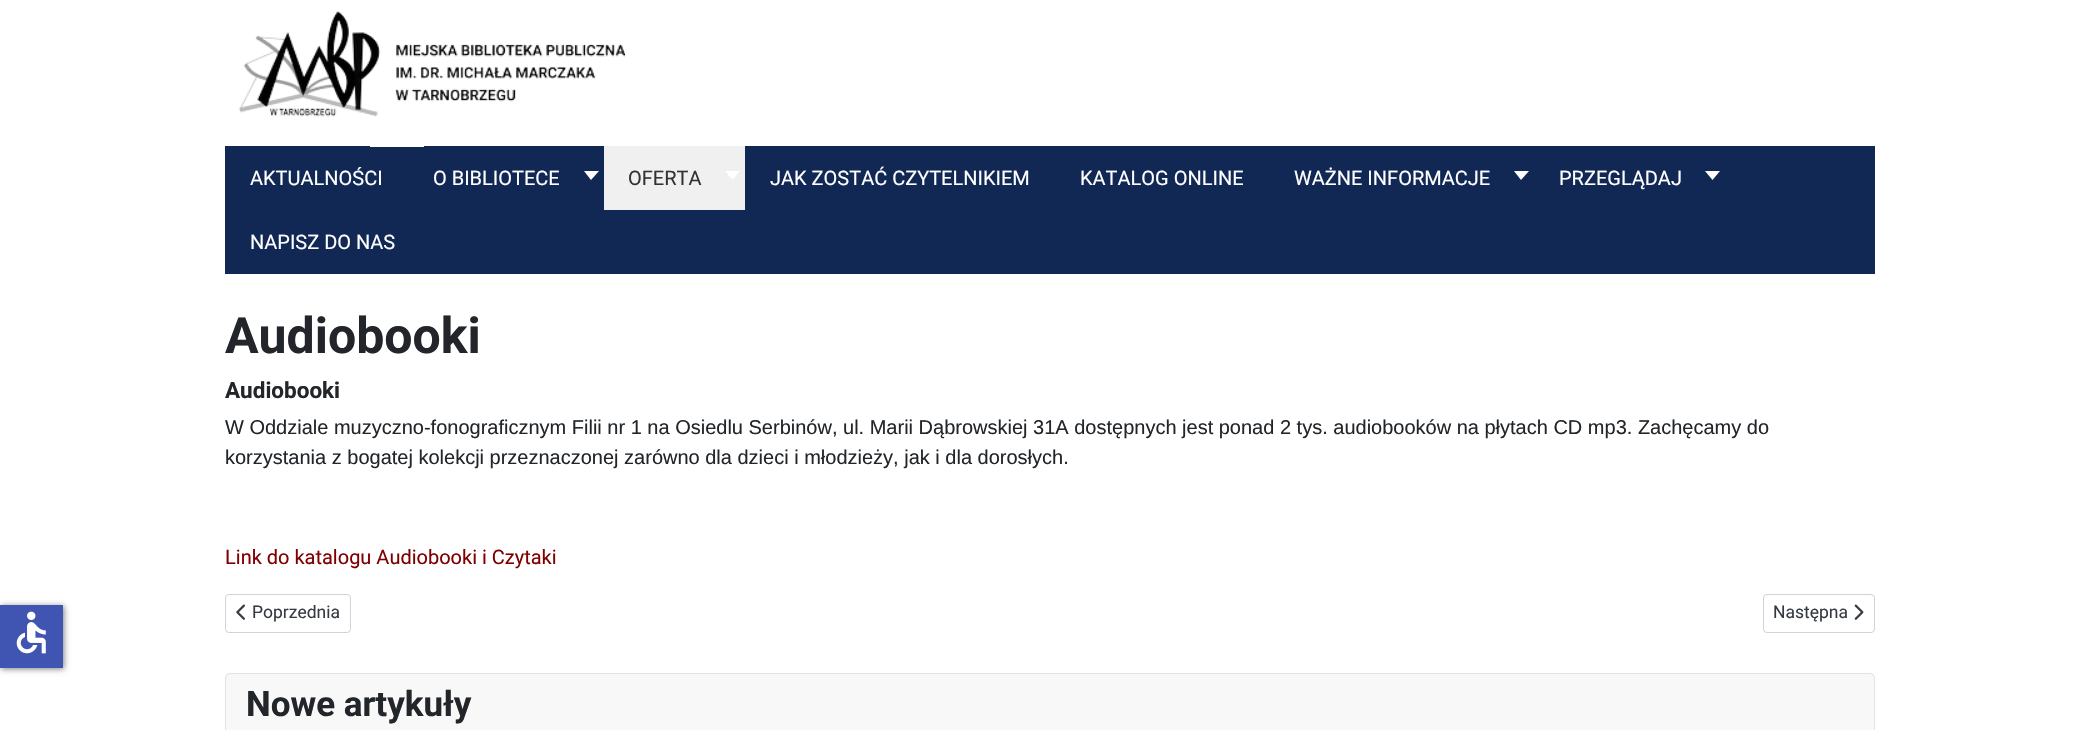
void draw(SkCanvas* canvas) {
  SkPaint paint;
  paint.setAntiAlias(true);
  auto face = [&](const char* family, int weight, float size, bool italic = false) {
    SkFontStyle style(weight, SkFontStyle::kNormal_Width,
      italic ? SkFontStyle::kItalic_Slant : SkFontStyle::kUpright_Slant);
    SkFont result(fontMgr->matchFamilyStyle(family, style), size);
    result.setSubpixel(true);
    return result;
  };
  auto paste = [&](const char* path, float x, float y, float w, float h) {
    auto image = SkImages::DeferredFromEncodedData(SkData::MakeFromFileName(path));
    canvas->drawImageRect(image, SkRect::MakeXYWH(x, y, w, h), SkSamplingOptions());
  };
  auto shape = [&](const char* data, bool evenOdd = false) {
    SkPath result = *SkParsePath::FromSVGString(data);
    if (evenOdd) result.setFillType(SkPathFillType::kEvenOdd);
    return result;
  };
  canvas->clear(0xffffffff);
  paste("img/1.png", 238, 11, 387, 106);
  paint.setColor(0xff112855);
  canvas->drawRect(SkRect::MakeXYWH(225, 146, 1650, 128), paint);
  paint.setColor(0xffffffff);
  canvas->drawRect(SkRect::MakeXYWH(370, 146, 54, 1), paint);
  canvas->drawPath(shape("M584 171H599L591 180Z"), paint);
  paint.setColor(0xfff0f0f0);
  canvas->drawRect(SkRect::MakeXYWH(604, 146, 141, 64), paint);
  paint.setColor(0xffffffff);
  canvas->drawPath(shape("M725 171H740L732.5 180Z"), paint);
  canvas->drawPath(shape("M1514 171H1529L1521 180Z"), paint);
  canvas->drawPath(shape("M1705 171H1720L1712.5 180Z"), paint);
  paint.setColor(0x80000000);
  paint.setMaskFilter(SkMaskFilter::MakeBlur(kNormal_SkBlurStyle, 3));
  canvas->drawRect(SkRect::MakeXYWH(1, 606, 63, 63), paint);
  paint.setMaskFilter(nullptr);
  paint.setColor(0xff4054b2);
  canvas->drawRect(SkRect::MakeXYWH(0, 605, 63, 63), paint);
  paste("img/2.png", 16, 611, 30, 43);
  paint.setStroke(true);
  paint.setStrokeWidth(1);
  paint.setColor(0xffced4da);
  canvas->drawRoundRect(SkRect::MakeXYWH(225.5f, 594.5f, 125, 38), 3.5f, 3.5f, paint);
  paste("img/3.png", 236, 604, 9, 16);
  canvas->drawRoundRect(SkRect::MakeXYWH(1763.5f, 594.5f, 111, 38), 3.5f, 3.5f, paint);
  paste("img/4.png", 1854, 604, 10, 16);
  paint.setColor(0xffdfe3e7);
  canvas->drawRoundRect(SkRect::MakeXYWH(225.5f, 673.5f, 1649, 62), 4.5f, 4.5f, paint);
  paint.setStroke(false);
  paint.setColor(0x0822262a);
  canvas->drawRect(SkRect::MakeXYWH(226, 674, 1648, 56), paint);
  auto f0 = face("Roboto", 400, 20);
  paint.setColor(0xffffffff);
  canvas->drawString("AKTUALNOŚCI", 250, 185, f0, paint);
  canvas->drawString("O BIBLIOTECE", 433, 185, f0, paint);
  paint.setColor(0xff333333);
  canvas->drawString("OFERTA", 628, 185, f0, paint);
  paint.setColor(0xffffffff);
  {
    const struct { const char* s; float x, y; } items[] = {
      {"JAK ZOSTAĆ CZYTELNIKIEM", 770, 185},
      {"KATALOG ONLINE", 1080, 185},
      {"WAŻNE INFORMACJE", 1294, 185},
      {"PRZEGLĄDAJ", 1559, 185},
      {"NAPISZ DO NAS", 250, 249},
    };
    for (auto [s, x, y] : items) {
      canvas->drawString(s, x, y, f0, paint);
    }
  }
  auto f1 = face("Roboto", 700, 50);
  paint.setColor(0xff22262a);
  canvas->drawString("Audiobooki", 225, 353, f1, paint);
  auto f2 = face("Roboto", 700, 22.5f);
  canvas->drawString("Audiobooki", 225, 398, f2, paint);
  auto f3 = face("Liberation Sans", 400, 20);
  canvas->drawString("W Oddziale muzyczno-fonograficznym Filii nr 1 na Osiedlu Serbinów, ul. Marii Dąbrowskiej 31A dostępnych jest ponad 2 tys. audiobooków na płytach CD mp3. Zachęcamy do", 225, 434, f3, paint);
  canvas->drawString("korzystania z bogatej kolekcji przeznaczonej zarówno dla dzieci i młodzieży, jak i dla dorosłych.", 225, 464, f3, paint);
  paint.setColor(0xff800000);
  canvas->drawString("Link do katalogu Audiobooki i Czytaki", 225, 564, f0, paint);
  auto f4 = face("Roboto", 400, 17.5f);
  paint.setColor(0xff353b41);
  canvas->drawString("Poprzednia", 252, 618, f4, paint);
  canvas->drawString("Następna", 1773, 618, f4, paint);
  auto f5 = face("Roboto", 700, 35);
  paint.setColor(0xff22262a);
  canvas->drawString("Nowe artykuły", 246, 716, f5, paint);
}
